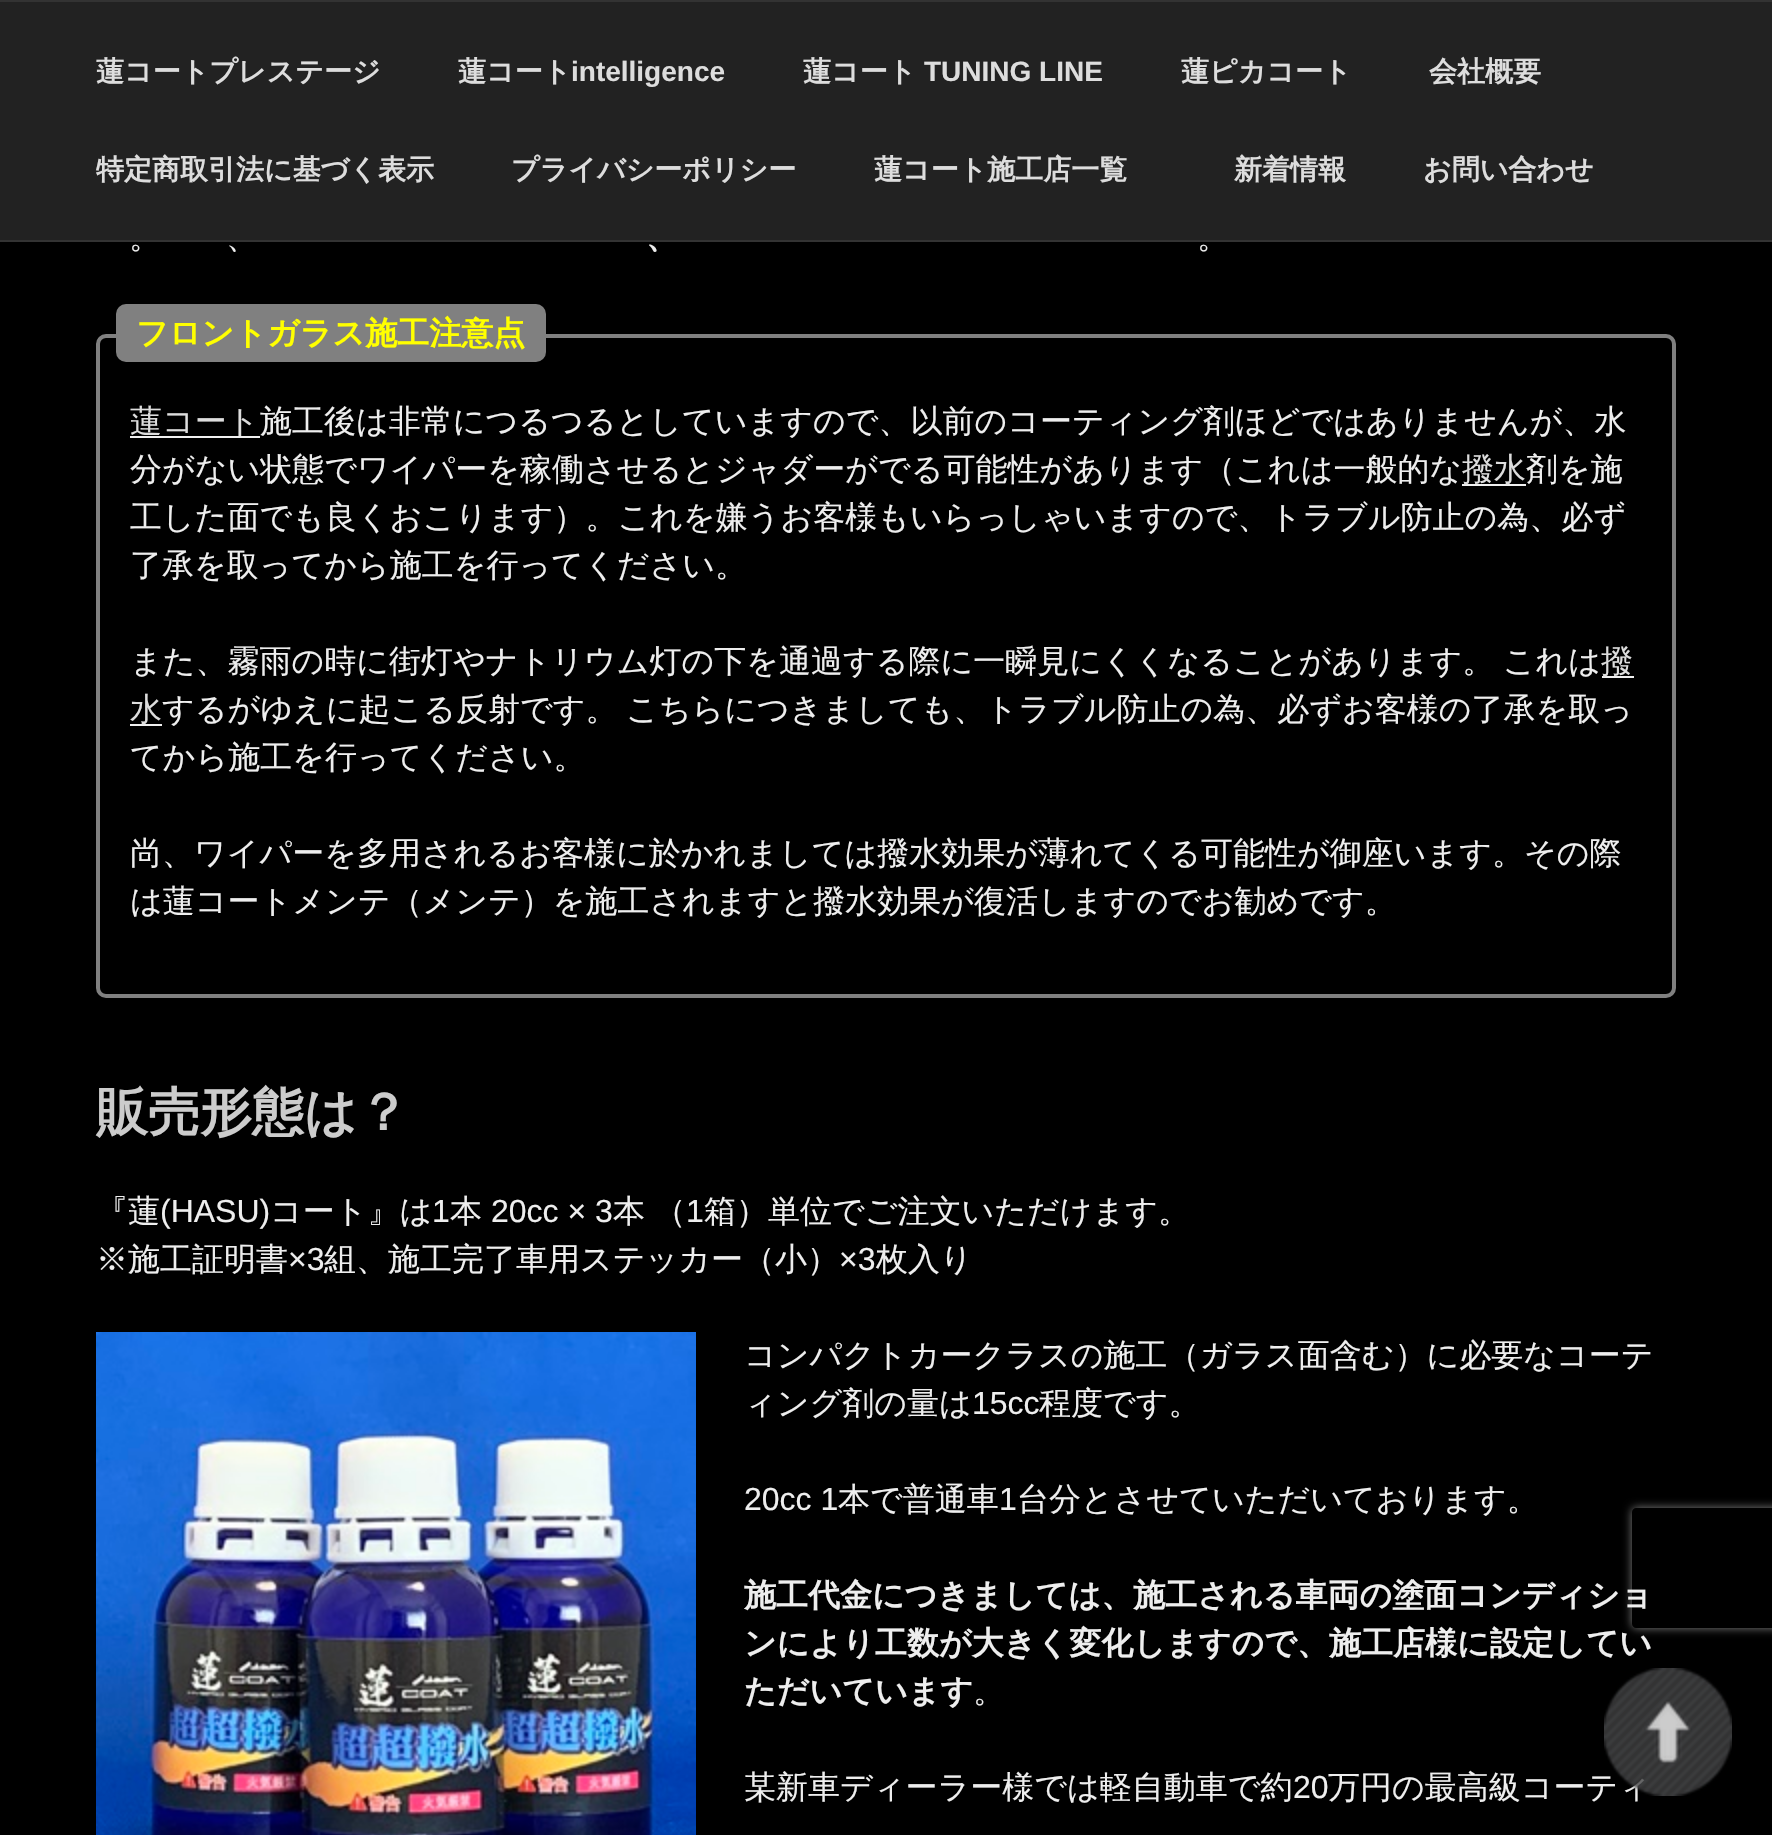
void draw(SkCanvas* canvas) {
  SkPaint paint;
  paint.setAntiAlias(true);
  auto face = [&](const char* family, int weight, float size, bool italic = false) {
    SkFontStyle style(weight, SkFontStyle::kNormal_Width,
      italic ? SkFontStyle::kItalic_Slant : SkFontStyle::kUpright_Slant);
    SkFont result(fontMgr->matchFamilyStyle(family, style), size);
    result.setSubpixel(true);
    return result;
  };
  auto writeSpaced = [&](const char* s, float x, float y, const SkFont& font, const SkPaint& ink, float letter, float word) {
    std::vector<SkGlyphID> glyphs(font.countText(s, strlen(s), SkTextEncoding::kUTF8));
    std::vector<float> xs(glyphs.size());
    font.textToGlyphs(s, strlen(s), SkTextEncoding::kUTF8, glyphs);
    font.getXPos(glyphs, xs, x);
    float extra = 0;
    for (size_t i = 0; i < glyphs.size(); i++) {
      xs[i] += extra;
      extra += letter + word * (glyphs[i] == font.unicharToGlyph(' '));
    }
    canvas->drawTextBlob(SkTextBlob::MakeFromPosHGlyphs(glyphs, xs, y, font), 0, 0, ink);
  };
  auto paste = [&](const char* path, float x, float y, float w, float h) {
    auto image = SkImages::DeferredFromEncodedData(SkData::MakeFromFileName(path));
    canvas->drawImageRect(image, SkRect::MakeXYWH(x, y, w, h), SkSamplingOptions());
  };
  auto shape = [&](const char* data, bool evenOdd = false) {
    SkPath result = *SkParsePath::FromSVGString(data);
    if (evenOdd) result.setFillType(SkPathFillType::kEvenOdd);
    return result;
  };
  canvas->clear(0xff000000);
  {
    const struct { float x, y, w, h; SkColor color; } items[] = {
      {0, 2, 1772, 238, 0xff222222},
      {0, 0, 1772, 2, 0xff333333},
      {0, 240, 1772, 2, 0xff333333},
    };
    for (auto [x, y, w, h, color] : items) {
      paint.setColor(color);
      canvas->drawRect(SkRect::MakeXYWH(x, y, w, h), paint);
    }
  }
  paint.setStroke(true);
  paint.setStrokeWidth(4);
  paint.setColor(0xff808080);
  canvas->drawRoundRect(SkRect::MakeXYWH(98, 336, 1576, 660), 8, 8, paint);
  paint.setStroke(false);
  canvas->drawRoundRect(SkRect::MakeXYWH(116, 304, 430, 58), 10, 10, paint);
  {
    const struct { float x, y, w, h; SkColor color; } items[] = {
      {130, 436, 130, 2, 0xfff0f0f0},
      {1462, 484, 64, 2, 0xfff0f0f0},
      {1602, 676, 32, 2, 0xfff0f0f0},
      {130, 724, 32, 2, 0xfff0f0f0},
    };
    for (auto [x, y, w, h, color] : items) {
      paint.setColor(color);
      canvas->drawRect(SkRect::MakeXYWH(x, y, w, h), paint);
    }
  }
  paste("img/1.png", 96, 1332, 600, 503);
  canvas->save();
  canvas->clipPath(shape("M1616 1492H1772V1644H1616ZM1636 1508H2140C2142 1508 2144 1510 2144 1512V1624C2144 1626 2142 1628 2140 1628H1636C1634 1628 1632 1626 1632 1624V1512C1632 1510 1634 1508 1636 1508Z", true), true);
  paint.setColor(0xff808080);
  paint.setMaskFilter(SkMaskFilter::MakeBlur(kNormal_SkBlurStyle, 5));
  canvas->drawRoundRect(SkRect::MakeXYWH(1632, 1508, 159, 120), 4, 4, paint);
  paint.setMaskFilter(nullptr);
  canvas->restore();
  auto f0 = face("WenQuanYi Zen Hei", 700, 28);
  paint.setColor(0xffdddddd);
  canvas->drawString("蓮コートプレステージ", 96, 81, f0, paint);
  canvas->drawString("蓮コート", 458, 81, f0, paint);
  auto f1 = face("Liberation Sans", 700, 28);
  canvas->drawString("intelligence", 571, 81, f1, paint);
  canvas->drawString("蓮コート", 803, 81, f0, paint);
  canvas->drawString("TUNING LINE", 924, 81, f1, paint);
  {
    const struct { const char* s; float x, y; } items[] = {
      {"蓮ピカコート", 1181, 81},
      {"会社概要", 1429, 81},
      {"特定商取引法に基づく表示", 96, 179},
      {"プライバシーポリシー", 511, 179},
      {"蓮コート施工店一覧", 874, 179},
      {"新着情報", 1234, 179},
      {"お問い合わせ", 1423, 179},
    };
    for (auto [s, x, y] : items) {
      canvas->drawString(s, x, y, f0, paint);
    }
  }
  auto f2 = face("WenQuanYi Zen Hei", 500, 32);
  paint.setColor(0xffeeeeee);
  canvas->drawString("。", 129, 248, f2, paint);
  canvas->drawString("、", 226, 248, f2, paint);
  auto f3 = face("WenQuanYi Zen Hei", 700, 32);
  canvas->drawString("、", 646, 248, f3, paint);
  canvas->drawString("。", 1197, 248, f2, paint);
  paint.setColor(0xffffff00);
  canvas->drawString("フロントガラス施工注意点", 136, 344, f3, paint);
  paint.setColor(0xffdddddd);
  canvas->drawString("蓮コート", 130, 432, f2, paint);
  paint.setColor(0xffeeeeee);
  canvas->drawString("施工後は非常につるつるとしていますので、以前のコーティング剤ほどではありませんが、水", 260, 432, f2, paint);
  canvas->drawString("分がない状態でワイパーを稼働させるとジャダーがでる可能性があります（これは一般的な", 130, 480, f2, paint);
  paint.setColor(0xffdddddd);
  canvas->drawString("撥水", 1462, 480, f2, paint);
  paint.setColor(0xffeeeeee);
  {
    const struct { const char* s; float x, y; } items[] = {
      {"剤を施", 1526, 480},
      {"工した面でも良くおこります）。これを嫌うお客様もいらっしゃいますので、トラブル防止の為、必ず", 130, 528},
      {"了承を取ってから施工を行ってください。", 130, 576},
    };
    for (auto [s, x, y] : items) {
      canvas->drawString(s, x, y, f2, paint);
    }
  }
  writeSpaced("また、霧雨の時に街灯やナトリウム灯の下を通過する際に一瞬見にくくなることがあります。 これは", 130, 672, f2, paint, 0, -1);
  paint.setColor(0xffdddddd);
  canvas->drawString("撥", 1601, 672, f2, paint);
  canvas->drawString("水", 130, 720, f2, paint);
  paint.setColor(0xffeeeeee);
  writeSpaced("するがゆえに起こる反射です。 こちらにつきましても、トラブル防止の為、必ずお客様の了承を取っ", 162, 720, f2, paint, 0, -1);
  {
    const struct { const char* s; float x, y; } items[] = {
      {"てから施工を行ってください。", 130, 768},
      {"尚、ワイパーを多用されるお客様に於かれましては撥水効果が薄れてくる可能性が御座います。その際", 130, 864},
      {"は蓮コートメンテ（メンテ）を施工されますと撥水効果が復活しますのでお勧めです。", 130, 912},
    };
    for (auto [s, x, y] : items) {
      canvas->drawString(s, x, y, f2, paint);
    }
  }
  auto f4 = face("WenQuanYi Zen Hei", 700, 52);
  paint.setColor(0xffcccccc);
  canvas->drawString("販売形態は？", 96, 1130, f4, paint);
  paint.setColor(0xffeeeeee);
  canvas->drawString("『蓮", 96, 1222, f2, paint);
  auto f5 = face("Liberation Sans", 400, 32);
  canvas->drawString("(HASU)", 160, 1222, f5, paint);
  canvas->drawString("コート』は", 270, 1222, f2, paint);
  canvas->drawString("1", 432, 1222, f5, paint);
  canvas->drawString("本", 450, 1222, f2, paint);
  canvas->drawString("20cc × 3", 491, 1222, f5, paint);
  canvas->drawString("本", 613, 1222, f2, paint);
  canvas->drawString("（", 654, 1222, f2, paint);
  canvas->drawString("1", 686, 1222, f5, paint);
  canvas->drawString("箱）単位でご注文いただけます。", 704, 1222, f2, paint);
  canvas->drawString("※施工証明書", 96, 1270, f2, paint);
  canvas->drawString("×3", 288, 1270, f5, paint);
  canvas->drawString("組、施工完了車用ステッカー（小）", 324, 1270, f2, paint);
  canvas->drawString("×3", 839, 1270, f5, paint);
  {
    const struct { const char* s; float x, y; } items[] = {
      {"枚入り", 876, 1270},
      {"コンパクトカークラスの施工（ガラス面含む）に必要なコーテ", 744, 1366},
      {"ィング剤の量は", 744, 1414},
    };
    for (auto [s, x, y] : items) {
      canvas->drawString(s, x, y, f2, paint);
    }
  }
  canvas->drawString("15cc", 972, 1414, f5, paint);
  canvas->drawString("程度です。", 1039, 1414, f2, paint);
  canvas->drawString("20cc 1", 744, 1510, f5, paint);
  canvas->drawString("本で普通車", 838, 1510, f2, paint);
  canvas->drawString("1", 999, 1510, f5, paint);
  canvas->drawString("台分とさせていただいております。", 1017, 1510, f2, paint);
  {
    const struct { const char* s; float x, y; } items[] = {
      {"施工代金につきましては、施工される車両の塗面コンディショ", 744, 1606},
      {"ンにより工数が大きく変化しますので、施工店様に設定してい", 744, 1654},
      {"ただいています", 744, 1702},
    };
    for (auto [s, x, y] : items) {
      canvas->drawString(s, x, y, f3, paint);
    }
  }
  canvas->drawString("。", 973, 1702, f2, paint);
  canvas->drawString("某新車ディーラー様では軽自動車で約", 744, 1798, f2, paint);
  canvas->drawString("20", 1293, 1798, f5, paint);
  canvas->drawString("万円の最高級コーティ", 1328, 1798, f2, paint);
  paste("img/2.png", 1604, 1668, 128, 128);
}
